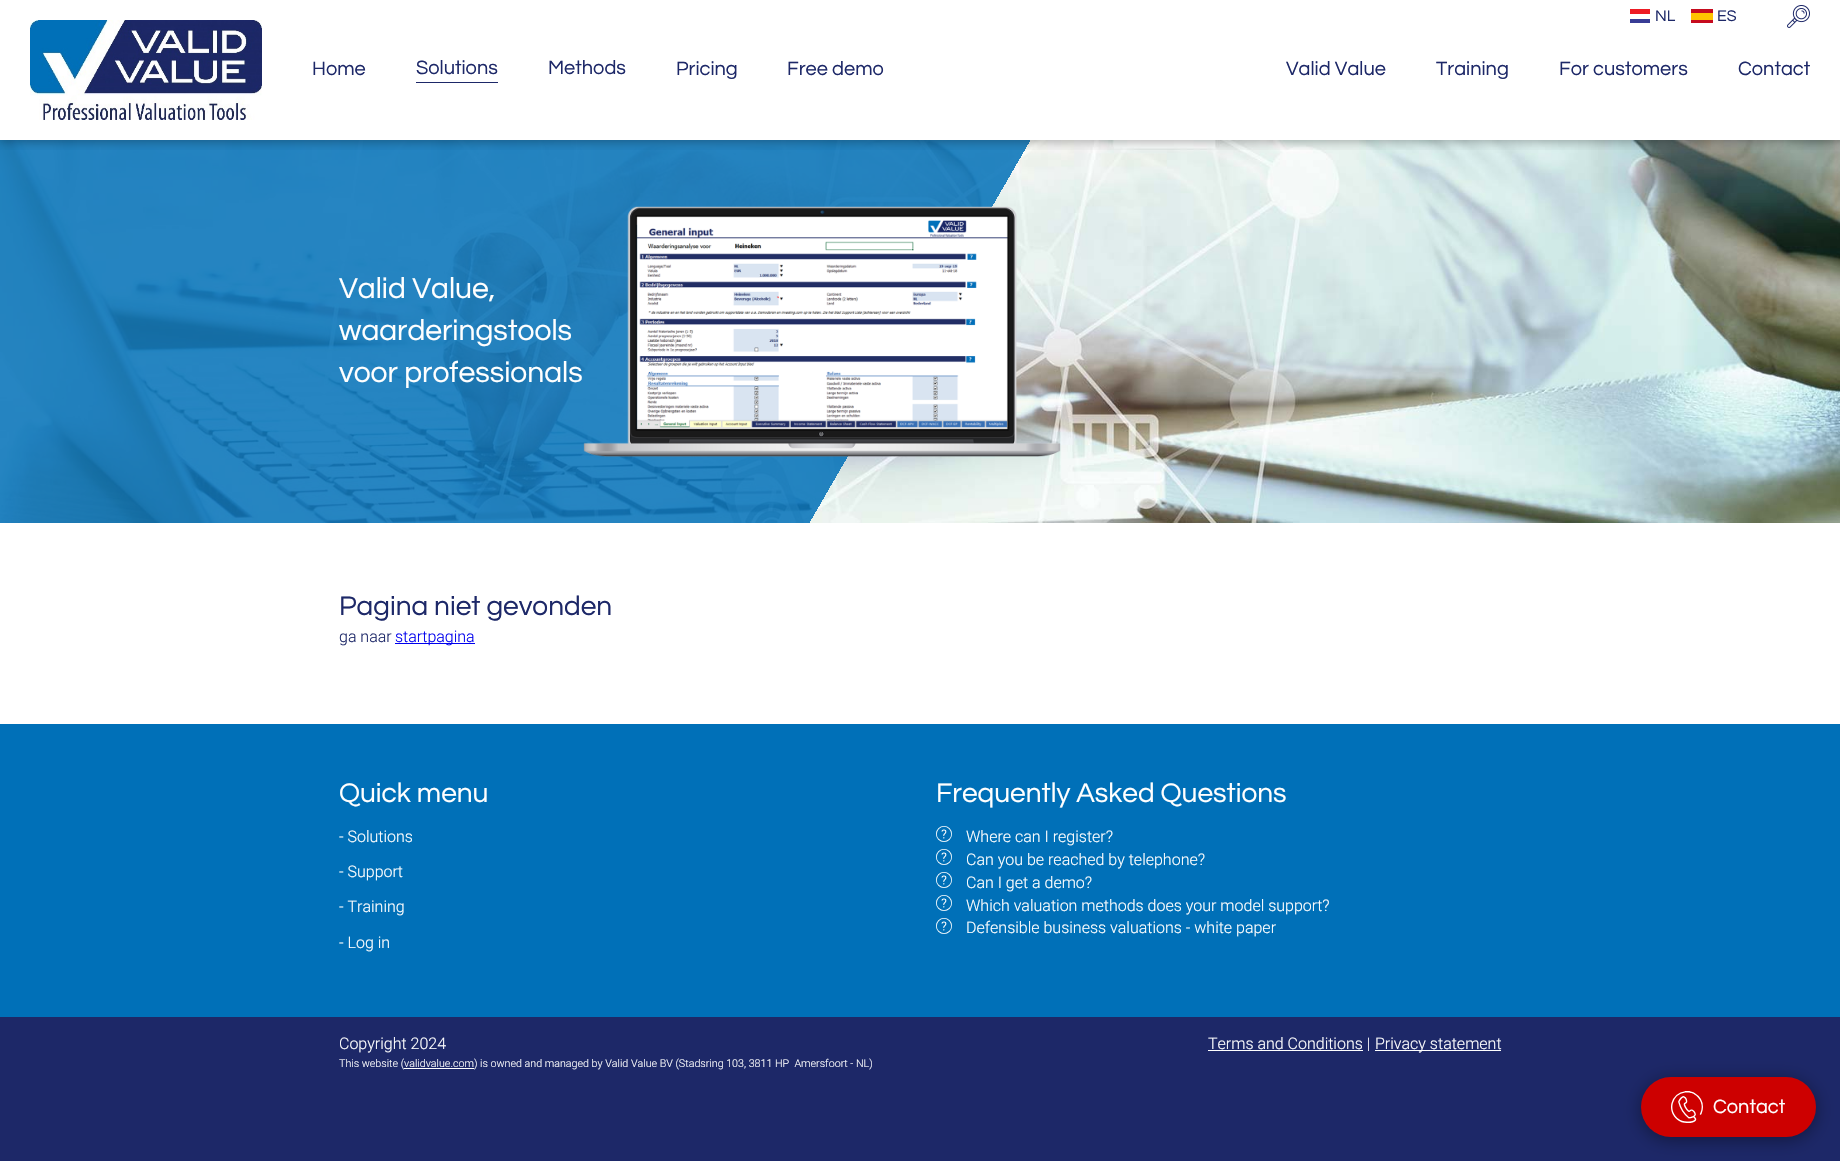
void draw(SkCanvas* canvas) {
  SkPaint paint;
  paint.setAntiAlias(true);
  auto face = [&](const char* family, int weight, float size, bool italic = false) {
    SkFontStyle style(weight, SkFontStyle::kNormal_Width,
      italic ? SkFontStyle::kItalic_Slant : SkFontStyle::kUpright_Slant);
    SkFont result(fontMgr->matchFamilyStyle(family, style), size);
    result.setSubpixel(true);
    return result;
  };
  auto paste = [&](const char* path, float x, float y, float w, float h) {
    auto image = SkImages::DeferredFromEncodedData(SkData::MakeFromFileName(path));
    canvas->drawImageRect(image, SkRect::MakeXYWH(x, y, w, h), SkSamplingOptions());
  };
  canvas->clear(0xff1d2868);
  paint.setColor(0xffffffff);
  canvas->drawRect(SkRect::MakeXYWH(0, 0, 1840, 724), paint);
  paste("img/3.png", 0, 140, 1840, 383);
  canvas->save();
  canvas->clipRect(SkRect::MakeXYWH(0, 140, 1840, 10));
  paint.setColor(0x66000000);
  paint.setMaskFilter(SkMaskFilter::MakeBlur(kNormal_SkBlurStyle, 6));
  canvas->drawRect(SkRect::MakeXYWH(0, 0, 1840, 140), paint);
  paint.setMaskFilter(nullptr);
  canvas->restore();
  paste("img/1.png", 30, 20, 232, 100);
  {
    const struct { float x, y, w, h; SkColor color; } items[] = {
      {1630, 9, 20, 5, 0xffed1b24},
      {1630, 19, 20, 4, 0xff383c95},
      {1691, 9, 22, 14, 0xffc60b1e},
      {1691, 13, 22, 7, 0xffffc400},
    };
    for (auto [x, y, w, h, color] : items) {
      paint.setColor(color);
      canvas->drawRect(SkRect::MakeXYWH(x, y, w, h), paint);
    }
  }
  paste("img/2.png", 1787, 5, 23, 23);
  paint.setColor(0xff1d2868);
  canvas->drawRect(SkRect::MakeXYWH(416, 82, 82, 1), paint);
  paste("img/4.png", 583, 206, 478, 251);
  paint.setColor(0xff0000ee);
  canvas->drawRect(SkRect::MakeXYWH(395, 643, 80, 1), paint);
  paint.setColor(0xff0070b8);
  canvas->drawRect(SkRect::MakeXYWH(0, 724, 1840, 293), paint);
  paste("img/5.png", 936, 826, 16, 16);
  paste("img/5.png", 936, 849, 16, 16);
  paste("img/5.png", 936, 872, 16, 16);
  paste("img/5.png", 936, 895, 16, 16);
  paste("img/5.png", 936, 918, 16, 16);
  {
    const struct { float x, y, w, h; SkColor color; } items[] = {
      {404, 1068, 70, 1, 0xffffffff},
      {1208, 1050, 155, 1, 0xffffffff},
      {1375, 1050, 126, 1, 0xffffffff},
    };
    for (auto [x, y, w, h, color] : items) {
      paint.setColor(color);
      canvas->drawRect(SkRect::MakeXYWH(x, y, w, h), paint);
    }
  }
  paint.setColor(0x66000000);
  paint.setMaskFilter(SkMaskFilter::MakeBlur(kNormal_SkBlurStyle, 9));
  canvas->drawRoundRect(SkRect::MakeXYWH(1641, 1080, 175, 60), 30, 30, paint);
  paint.setMaskFilter(nullptr);
  paint.setColor(0xffcd0000);
  canvas->drawRoundRect(SkRect::MakeXYWH(1641, 1077, 175, 60), 30, 30, paint);
  paste("img/6.png", 1671, 1091, 32, 32);
  auto f0 = face("Questrial", 400, 16);
  paint.setColor(0xff1d2868);
  canvas->drawString("NL", 1655, 21, f0, paint);
  canvas->drawString("ES", 1717, 21, f0, paint);
  auto f1 = face("Questrial", 400, 20);
  {
    const struct { const char* s; float x, y; } items[] = {
      {"Home", 312, 75},
      {"Solutions", 416, 74},
      {"Methods", 548, 74},
      {"Pricing", 676, 75},
      {"Free demo", 787, 75},
      {"Valid Value", 1286, 75},
      {"Training", 1436, 75},
      {"For customers", 1559, 75},
      {"Contact", 1738, 75},
    };
    for (auto [s, x, y] : items) {
      canvas->drawString(s, x, y, f1, paint);
    }
  }
  auto f2 = face("Questrial", 400, 30);
  paint.setColor(0xffffffff);
  {
    const struct { const char* s; float x, y; } items[] = {
      {"Valid Value,", 339, 298},
      {"waarderingstools", 339, 340},
      {"voor professionals", 339, 382},
    };
    for (auto [s, x, y] : items) {
      canvas->drawString(s, x, y, f2, paint);
    }
  }
  auto f3 = face("Questrial", 400, 28);
  paint.setColor(0xff1d2868);
  canvas->drawString("Pagina niet gevonden", 339, 615, f3, paint);
  auto f4 = face("Roboto", 300, 16);
  canvas->drawString("ga naar", 339, 642, f4, paint);
  paint.setColor(0xff0000ee);
  canvas->drawString("startpagina", 395, 642, f4, paint);
  paint.setColor(0xffffffff);
  canvas->drawString("Quick menu", 339, 802, f3, paint);
  {
    const struct { const char* s; float x, y; } items[] = {
      {"- Solutions", 339, 842},
      {"- Support", 339, 877},
      {"- Training", 339, 912},
      {"- Log in", 339, 948},
    };
    for (auto [s, x, y] : items) {
      canvas->drawString(s, x, y, f4, paint);
    }
  }
  canvas->drawString("Frequently Asked Questions", 936, 802, f3, paint);
  {
    const struct { const char* s; float x, y; } items[] = {
      {"Where can I register?", 966, 842},
      {"Can you be reached by telephone?", 966, 865},
      {"Can I get a demo?", 966, 888},
      {"Which valuation methods does your model support?", 966, 911},
      {"Defensible business valuations - white paper", 966, 933},
      {"Copyright 2024", 339, 1049},
    };
    for (auto [s, x, y] : items) {
      canvas->drawString(s, x, y, f4, paint);
    }
  }
  auto f5 = face("Roboto", 300, 10.7f);
  canvas->drawString("This website (validvalue.com) is owned and managed by Valid Value BV (Stadsring 103, 3811 HP  Amersfoort - NL)", 339, 1067, f5, paint);
  canvas->drawString("Terms and Conditions |", 1208, 1049, f4, paint);
  canvas->drawString("Privacy statement", 1375, 1049, f4, paint);
  canvas->drawString("Contact", 1713, 1113, f1, paint);
}
